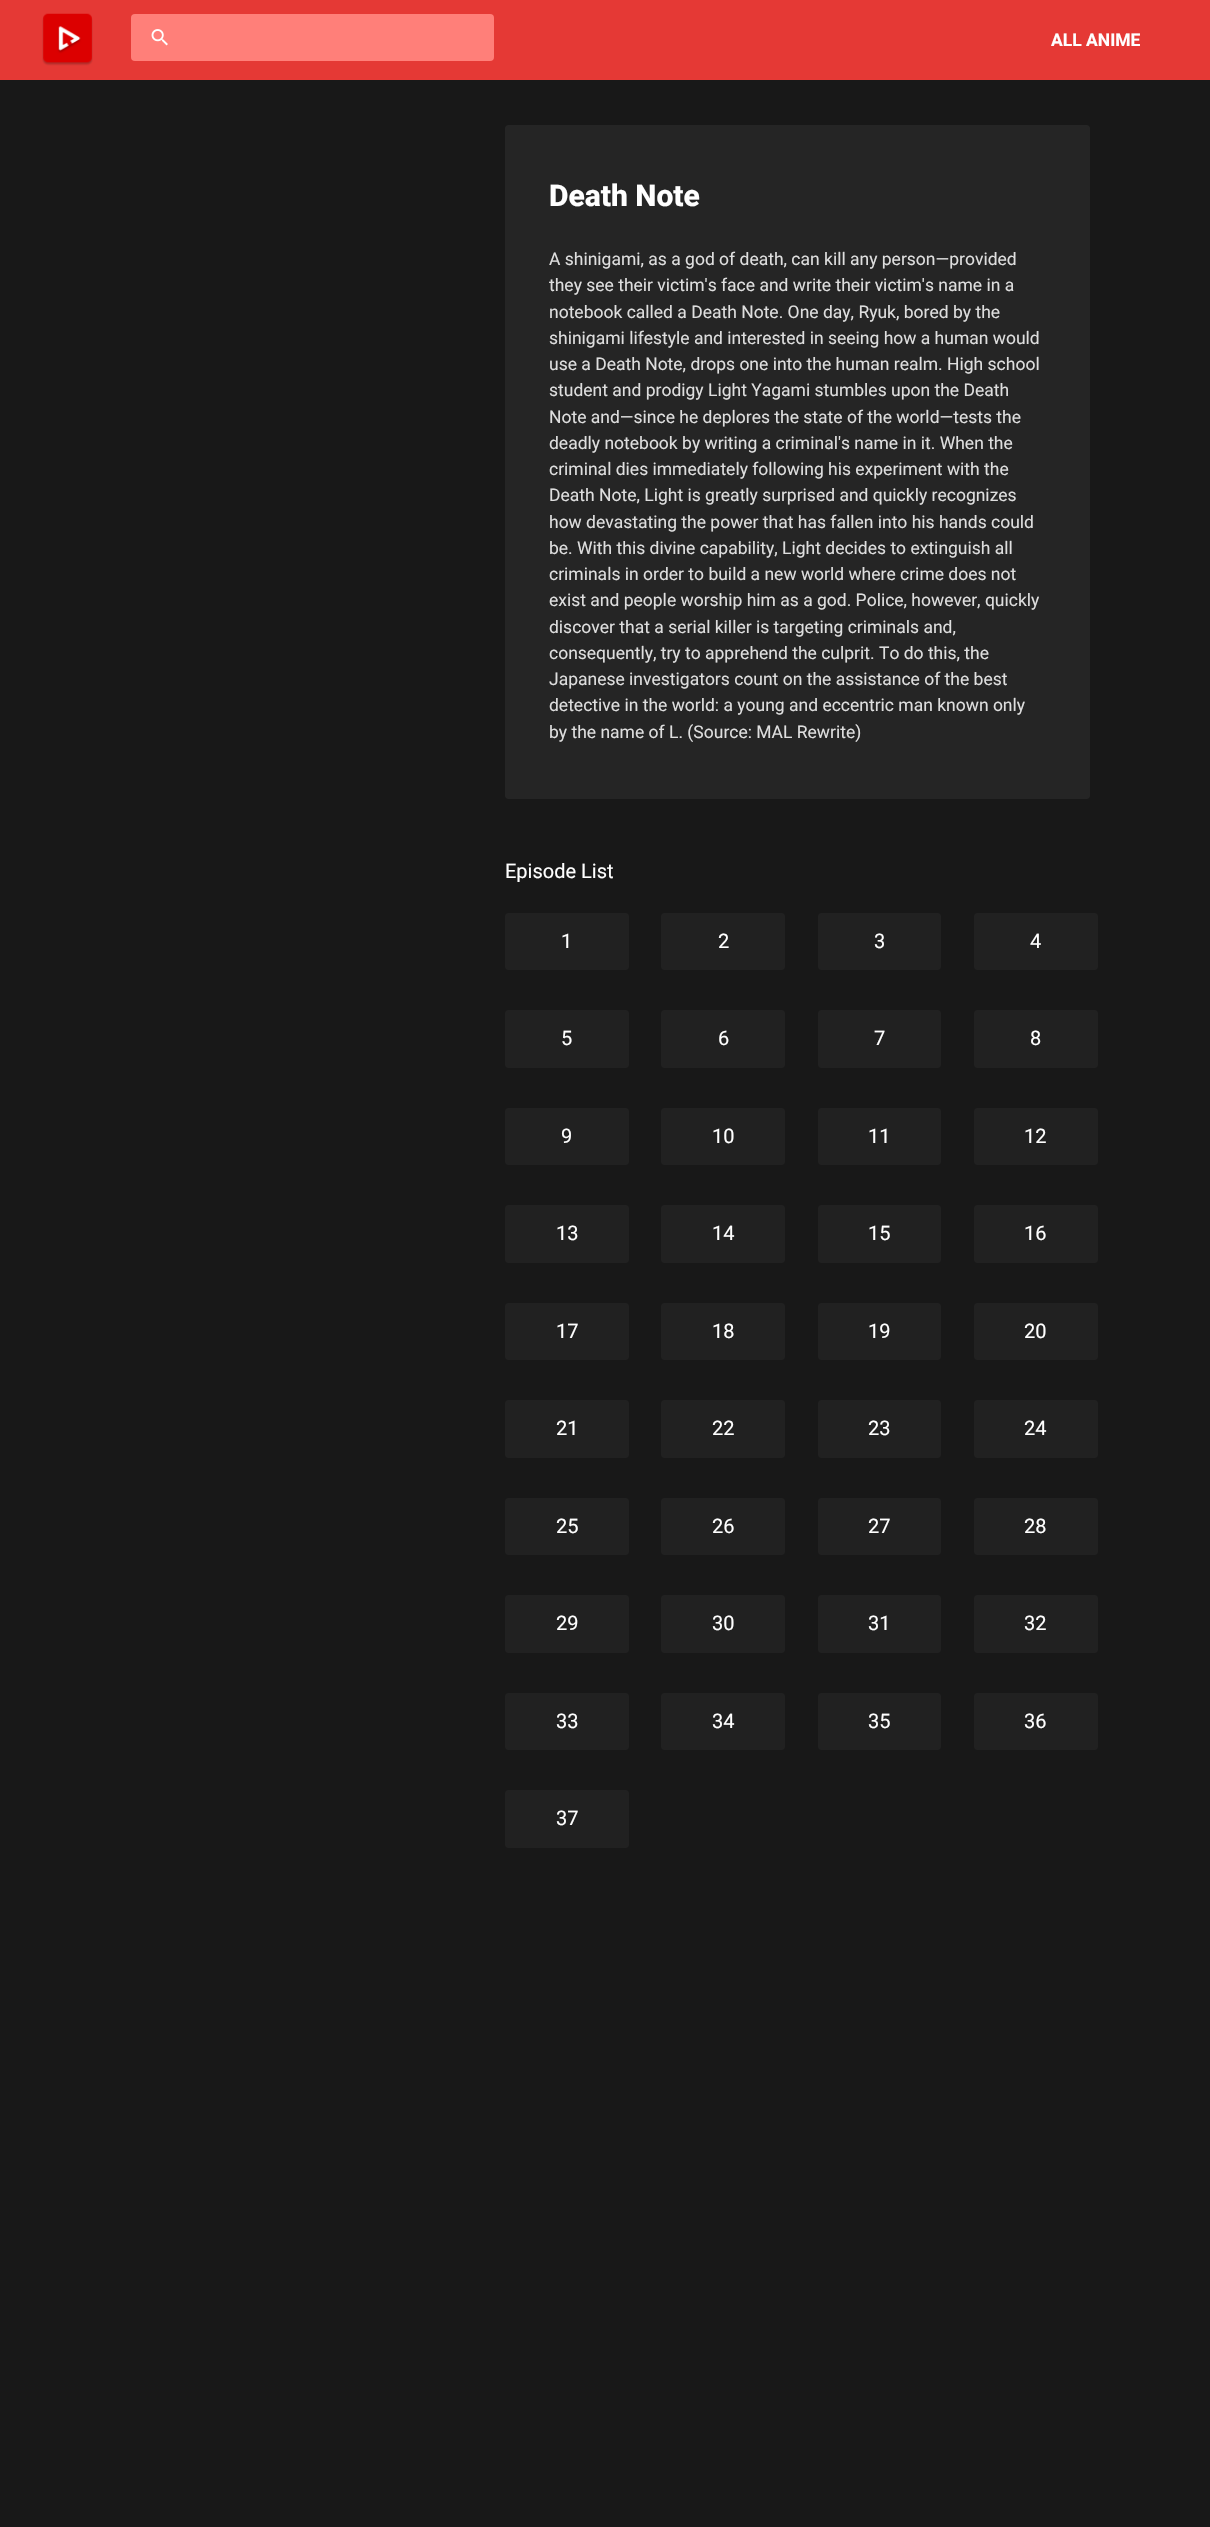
void draw(SkCanvas* canvas) {
  SkPaint paint;
  paint.setAntiAlias(true);
  auto face = [&](const char* family, int weight, float size, bool italic = false) {
    SkFontStyle style(weight, SkFontStyle::kNormal_Width,
      italic ? SkFontStyle::kItalic_Slant : SkFontStyle::kUpright_Slant);
    SkFont result(fontMgr->matchFamilyStyle(family, style), size);
    result.setSubpixel(true);
    return result;
  };
  auto paste = [&](const char* path, float x, float y, float w, float h) {
    auto image = SkImages::DeferredFromEncodedData(SkData::MakeFromFileName(path));
    canvas->drawImageRect(image, SkRect::MakeXYWH(x, y, w, h), SkSamplingOptions());
  };
  canvas->clear(0xff181818);
  paint.setColor(0xffe53935);
  canvas->drawRect(SkRect::MakeXYWH(0, 0, 1210, 80), paint);
  paste("img/1.png", 42, 13, 51, 53);
  paint.setColor(0xffff7f79);
  canvas->drawRoundRect(SkRect::MakeXYWH(131, 14, 363, 47), 4, 4, paint);
  paste("img/2.png", 151, 29, 17, 17);
  paint.setColor(0xff252525);
  canvas->drawRoundRect(SkRect::MakeXYWH(505, 125, 585, 674), 4, 4, paint);
  paint.setColor(0xff212121);
  canvas->drawRoundRect(SkRect::MakeXYWH(505, 913, 124, 57), 4, 4, paint);
  canvas->drawRoundRect(SkRect::MakeXYWH(661, 913, 124, 57), 4, 4, paint);
  canvas->drawRoundRect(SkRect::MakeXYWH(818, 913, 123, 57), 4, 4, paint);
  canvas->drawRoundRect(SkRect::MakeXYWH(974, 913, 124, 57), 4, 4, paint);
  canvas->drawRoundRect(SkRect::MakeXYWH(505, 1010, 124, 58), 4, 4, paint);
  canvas->drawRoundRect(SkRect::MakeXYWH(661, 1010, 124, 58), 4, 4, paint);
  canvas->drawRoundRect(SkRect::MakeXYWH(818, 1010, 123, 58), 4, 4, paint);
  canvas->drawRoundRect(SkRect::MakeXYWH(974, 1010, 124, 58), 4, 4, paint);
  canvas->drawRoundRect(SkRect::MakeXYWH(505, 1108, 124, 57), 4, 4, paint);
  canvas->drawRoundRect(SkRect::MakeXYWH(661, 1108, 124, 57), 4, 4, paint);
  canvas->drawRoundRect(SkRect::MakeXYWH(818, 1108, 123, 57), 4, 4, paint);
  canvas->drawRoundRect(SkRect::MakeXYWH(974, 1108, 124, 57), 4, 4, paint);
  canvas->drawRoundRect(SkRect::MakeXYWH(505, 1205, 124, 58), 4, 4, paint);
  canvas->drawRoundRect(SkRect::MakeXYWH(661, 1205, 124, 58), 4, 4, paint);
  canvas->drawRoundRect(SkRect::MakeXYWH(818, 1205, 123, 58), 4, 4, paint);
  canvas->drawRoundRect(SkRect::MakeXYWH(974, 1205, 124, 58), 4, 4, paint);
  canvas->drawRoundRect(SkRect::MakeXYWH(505, 1303, 124, 57), 4, 4, paint);
  canvas->drawRoundRect(SkRect::MakeXYWH(661, 1303, 124, 57), 4, 4, paint);
  canvas->drawRoundRect(SkRect::MakeXYWH(818, 1303, 123, 57), 4, 4, paint);
  canvas->drawRoundRect(SkRect::MakeXYWH(974, 1303, 124, 57), 4, 4, paint);
  canvas->drawRoundRect(SkRect::MakeXYWH(505, 1400, 124, 58), 4, 4, paint);
  canvas->drawRoundRect(SkRect::MakeXYWH(661, 1400, 124, 58), 4, 4, paint);
  canvas->drawRoundRect(SkRect::MakeXYWH(818, 1400, 123, 58), 4, 4, paint);
  canvas->drawRoundRect(SkRect::MakeXYWH(974, 1400, 124, 58), 4, 4, paint);
  canvas->drawRoundRect(SkRect::MakeXYWH(505, 1498, 124, 57), 4, 4, paint);
  canvas->drawRoundRect(SkRect::MakeXYWH(661, 1498, 124, 57), 4, 4, paint);
  canvas->drawRoundRect(SkRect::MakeXYWH(818, 1498, 123, 57), 4, 4, paint);
  canvas->drawRoundRect(SkRect::MakeXYWH(974, 1498, 124, 57), 4, 4, paint);
  canvas->drawRoundRect(SkRect::MakeXYWH(505, 1595, 124, 58), 4, 4, paint);
  canvas->drawRoundRect(SkRect::MakeXYWH(661, 1595, 124, 58), 4, 4, paint);
  canvas->drawRoundRect(SkRect::MakeXYWH(818, 1595, 123, 58), 4, 4, paint);
  canvas->drawRoundRect(SkRect::MakeXYWH(974, 1595, 124, 58), 4, 4, paint);
  canvas->drawRoundRect(SkRect::MakeXYWH(505, 1693, 124, 57), 4, 4, paint);
  canvas->drawRoundRect(SkRect::MakeXYWH(661, 1693, 124, 57), 4, 4, paint);
  canvas->drawRoundRect(SkRect::MakeXYWH(818, 1693, 123, 57), 4, 4, paint);
  canvas->drawRoundRect(SkRect::MakeXYWH(974, 1693, 124, 57), 4, 4, paint);
  canvas->drawRoundRect(SkRect::MakeXYWH(505, 1790, 124, 58), 4, 4, paint);
  auto f0 = face("Roboto", 700, 17.5f);
  paint.setColor(0xffffffff);
  canvas->drawString("ALL ANIME", 1051, 46, f0, paint);
  auto f1 = face("Roboto", 800, 30);
  canvas->drawString("Death Note", 549, 206, f1, paint);
  auto f2 = face("Roboto", 400, 17.5f);
  paint.setColor(0xffdedede);
  {
    const struct { const char* s; float x, y; } items[] = {
      {"A shinigami, as a god of death, can kill any person—provided", 549, 265},
      {"they see their victim's face and write their victim's name in a", 549, 291},
      {"notebook called a Death Note. One day, Ryuk, bored by the", 549, 318},
      {"shinigami lifestyle and interested in seeing how a human would", 549, 344},
      {"use a Death Note, drops one into the human realm. High school", 549, 370},
      {"student and prodigy Light Yagami stumbles upon the Death", 549, 396},
      {"Note and—since he deplores the state of the world—tests the", 549, 423},
      {"deadly notebook by writing a criminal's name in it. When the", 549, 449},
      {"criminal dies immediately following his experiment with the", 549, 475},
      {"Death Note, Light is greatly surprised and quickly recognizes", 549, 501},
      {"how devastating the power that has fallen into his hands could", 549, 528},
      {"be. With this divine capability, Light decides to extinguish all", 549, 554},
      {"criminals in order to build a new world where crime does not", 549, 580},
      {"exist and people worship him as a god. Police, however, quickly", 549, 606},
      {"discover that a serial killer is targeting criminals and,", 549, 633},
      {"consequently, try to apprehend the culprit. To do this, the", 549, 659},
      {"Japanese investigators count on the assistance of the best", 549, 685},
      {"detective in the world: a young and eccentric man known only", 549, 711},
      {"by the name of L. (Source: MAL Rewrite)", 549, 738},
    };
    for (auto [s, x, y] : items) {
      canvas->drawString(s, x, y, f2, paint);
    }
  }
  auto f3 = face("Roboto", 400, 20);
  paint.setColor(0xffffffff);
  {
    const struct { const char* s; float x, y; } items[] = {
      {"Episode List", 505, 878},
      {"1", 561, 948},
      {"2", 718, 948},
      {"3", 874, 948},
      {"4", 1030, 948},
      {"5", 561, 1045},
      {"6", 718, 1045},
      {"7", 874, 1045},
      {"8", 1030, 1045},
      {"9", 561, 1143},
      {"10", 712, 1143},
      {"11", 868, 1143},
      {"12", 1024, 1143},
      {"13", 556, 1240},
      {"14", 712, 1240},
      {"15", 868, 1240},
      {"16", 1024, 1240},
      {"17", 556, 1338},
      {"18", 712, 1338},
      {"19", 868, 1338},
      {"20", 1024, 1338},
      {"21", 556, 1435},
      {"22", 712, 1435},
      {"23", 868, 1435},
      {"24", 1024, 1435},
      {"25", 556, 1533},
      {"26", 712, 1533},
      {"27", 868, 1533},
      {"28", 1024, 1533},
      {"29", 556, 1630},
      {"30", 712, 1630},
      {"31", 868, 1630},
      {"32", 1024, 1630},
      {"33", 556, 1728},
      {"34", 712, 1728},
      {"35", 868, 1728},
      {"36", 1024, 1728},
      {"37", 556, 1825},
    };
    for (auto [s, x, y] : items) {
      canvas->drawString(s, x, y, f3, paint);
    }
  }
}
